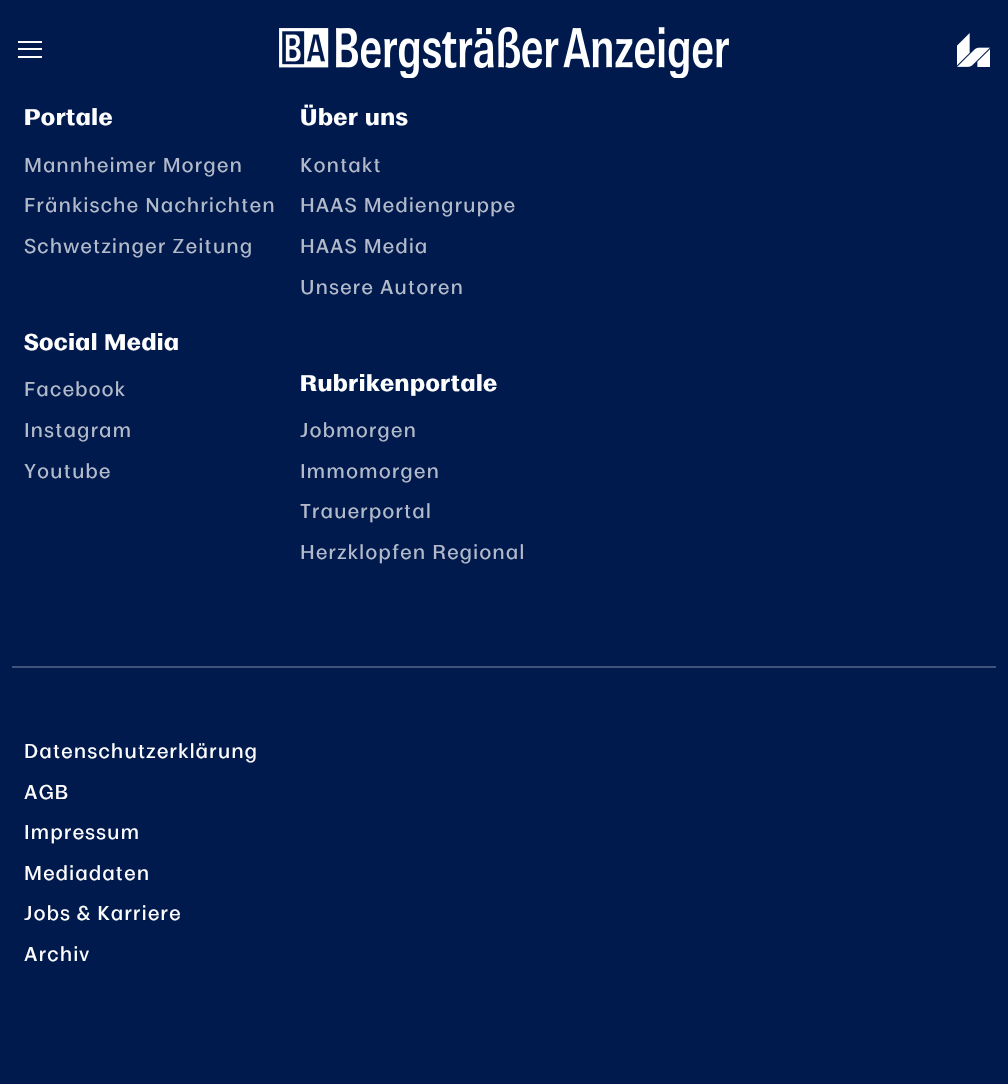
void draw(SkCanvas* canvas) {
  SkPaint paint;
  paint.setAntiAlias(true);
  auto face = [&](const char* family, int weight, float size, bool italic = false) {
    SkFontStyle style(weight, SkFontStyle::kNormal_Width,
      italic ? SkFontStyle::kItalic_Slant : SkFontStyle::kUpright_Slant);
    SkFont result(fontMgr->matchFamilyStyle(family, style), size);
    result.setSubpixel(true);
    return result;
  };
  auto writeSpaced = [&](const char* s, float x, float y, const SkFont& font, const SkPaint& ink, float letter, float word) {
    std::vector<SkGlyphID> glyphs(font.countText(s, strlen(s), SkTextEncoding::kUTF8));
    std::vector<float> xs(glyphs.size());
    font.textToGlyphs(s, strlen(s), SkTextEncoding::kUTF8, glyphs);
    font.getXPos(glyphs, xs, x);
    float extra = 0;
    for (size_t i = 0; i < glyphs.size(); i++) {
      xs[i] += extra;
      extra += letter + word * (glyphs[i] == font.unicharToGlyph(' '));
    }
    canvas->drawTextBlob(SkTextBlob::MakeFromPosHGlyphs(glyphs, xs, y, font), 0, 0, ink);
  };
  auto paste = [&](const char* path, float x, float y, float w, float h) {
    auto image = SkImages::DeferredFromEncodedData(SkData::MakeFromFileName(path));
    canvas->drawImageRect(image, SkRect::MakeXYWH(x, y, w, h), SkSamplingOptions());
  };
  canvas->clear(0xff001a4d);
  {
    const struct { float x, y, w, h; SkColor color; } items[] = {
      {18, 41, 24, 2, 0xffffffff},
      {18, 48, 24, 2, 0xffffffff},
      {18, 56, 24, 2, 0xffffffff},
    };
    for (auto [x, y, w, h, color] : items) {
      paint.setColor(color);
      canvas->drawRect(SkRect::MakeXYWH(x, y, w, h), paint);
    }
  }
  paste("img/1.png", 279, 27, 450, 51);
  paste("img/2.png", 957, 33, 33, 34);
  paint.setColor(0xff40537a);
  canvas->drawRect(SkRect::MakeXYWH(12, 666, 984, 2), paint);
  auto f0 = face("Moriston", 700, 21.1f);
  paint.setColor(0xffffffff);
  writeSpaced("Portale", 24, 125, f0, paint, 0.5f, 0);
  auto f1 = face("Moriston", 500, 18.5f);
  paint.setColor(0xffb3baca);
  {
    const struct { const char* s; float x, y; } items[] = {
      {"Mannheimer Morgen", 24, 172},
      {"Fränkische Nachrichten", 24, 212},
      {"Schwetzinger Zeitung", 24, 253},
    };
    for (auto [s, x, y] : items) {
      writeSpaced(s, x, y, f1, paint, 0.9f, 0);
    }
  }
  paint.setColor(0xffffffff);
  writeSpaced("Über uns", 300, 125, f0, paint, 0.5f, 0);
  paint.setColor(0xffb3baca);
  {
    const struct { const char* s; float x, y; } items[] = {
      {"Kontakt", 300, 172},
      {"HAAS Mediengruppe", 300, 212},
      {"HAAS Media", 300, 253},
      {"Unsere Autoren", 300, 294},
    };
    for (auto [s, x, y] : items) {
      writeSpaced(s, x, y, f1, paint, 0.9f, 0);
    }
  }
  paint.setColor(0xffffffff);
  writeSpaced("Social Media", 24, 350, f0, paint, 0.5f, 0);
  paint.setColor(0xffb3baca);
  {
    const struct { const char* s; float x, y; } items[] = {
      {"Facebook", 24, 396},
      {"Instagram", 24, 437},
      {"Youtube", 24, 478},
    };
    for (auto [s, x, y] : items) {
      writeSpaced(s, x, y, f1, paint, 0.9f, 0);
    }
  }
  paint.setColor(0xffffffff);
  writeSpaced("Rubrikenportale", 300, 391, f0, paint, 0.5f, 0);
  paint.setColor(0xffb3baca);
  {
    const struct { const char* s; float x, y; } items[] = {
      {"Jobmorgen", 300, 437},
      {"Immomorgen", 300, 478},
      {"Trauerportal", 300, 518},
      {"Herzklopfen Regional", 300, 559},
    };
    for (auto [s, x, y] : items) {
      writeSpaced(s, x, y, f1, paint, 0.9f, 0);
    }
  }
  paint.setColor(0xffffffff);
  {
    const struct { const char* s; float x, y; } items[] = {
      {"Datenschutzerklärung", 24, 758},
      {"AGB", 24, 799},
      {"Impressum", 24, 839},
      {"Mediadaten", 24, 880},
      {"Jobs & Karriere", 24, 920},
      {"Archiv", 24, 961},
    };
    for (auto [s, x, y] : items) {
      writeSpaced(s, x, y, f1, paint, 0.9f, 0);
    }
  }
}
